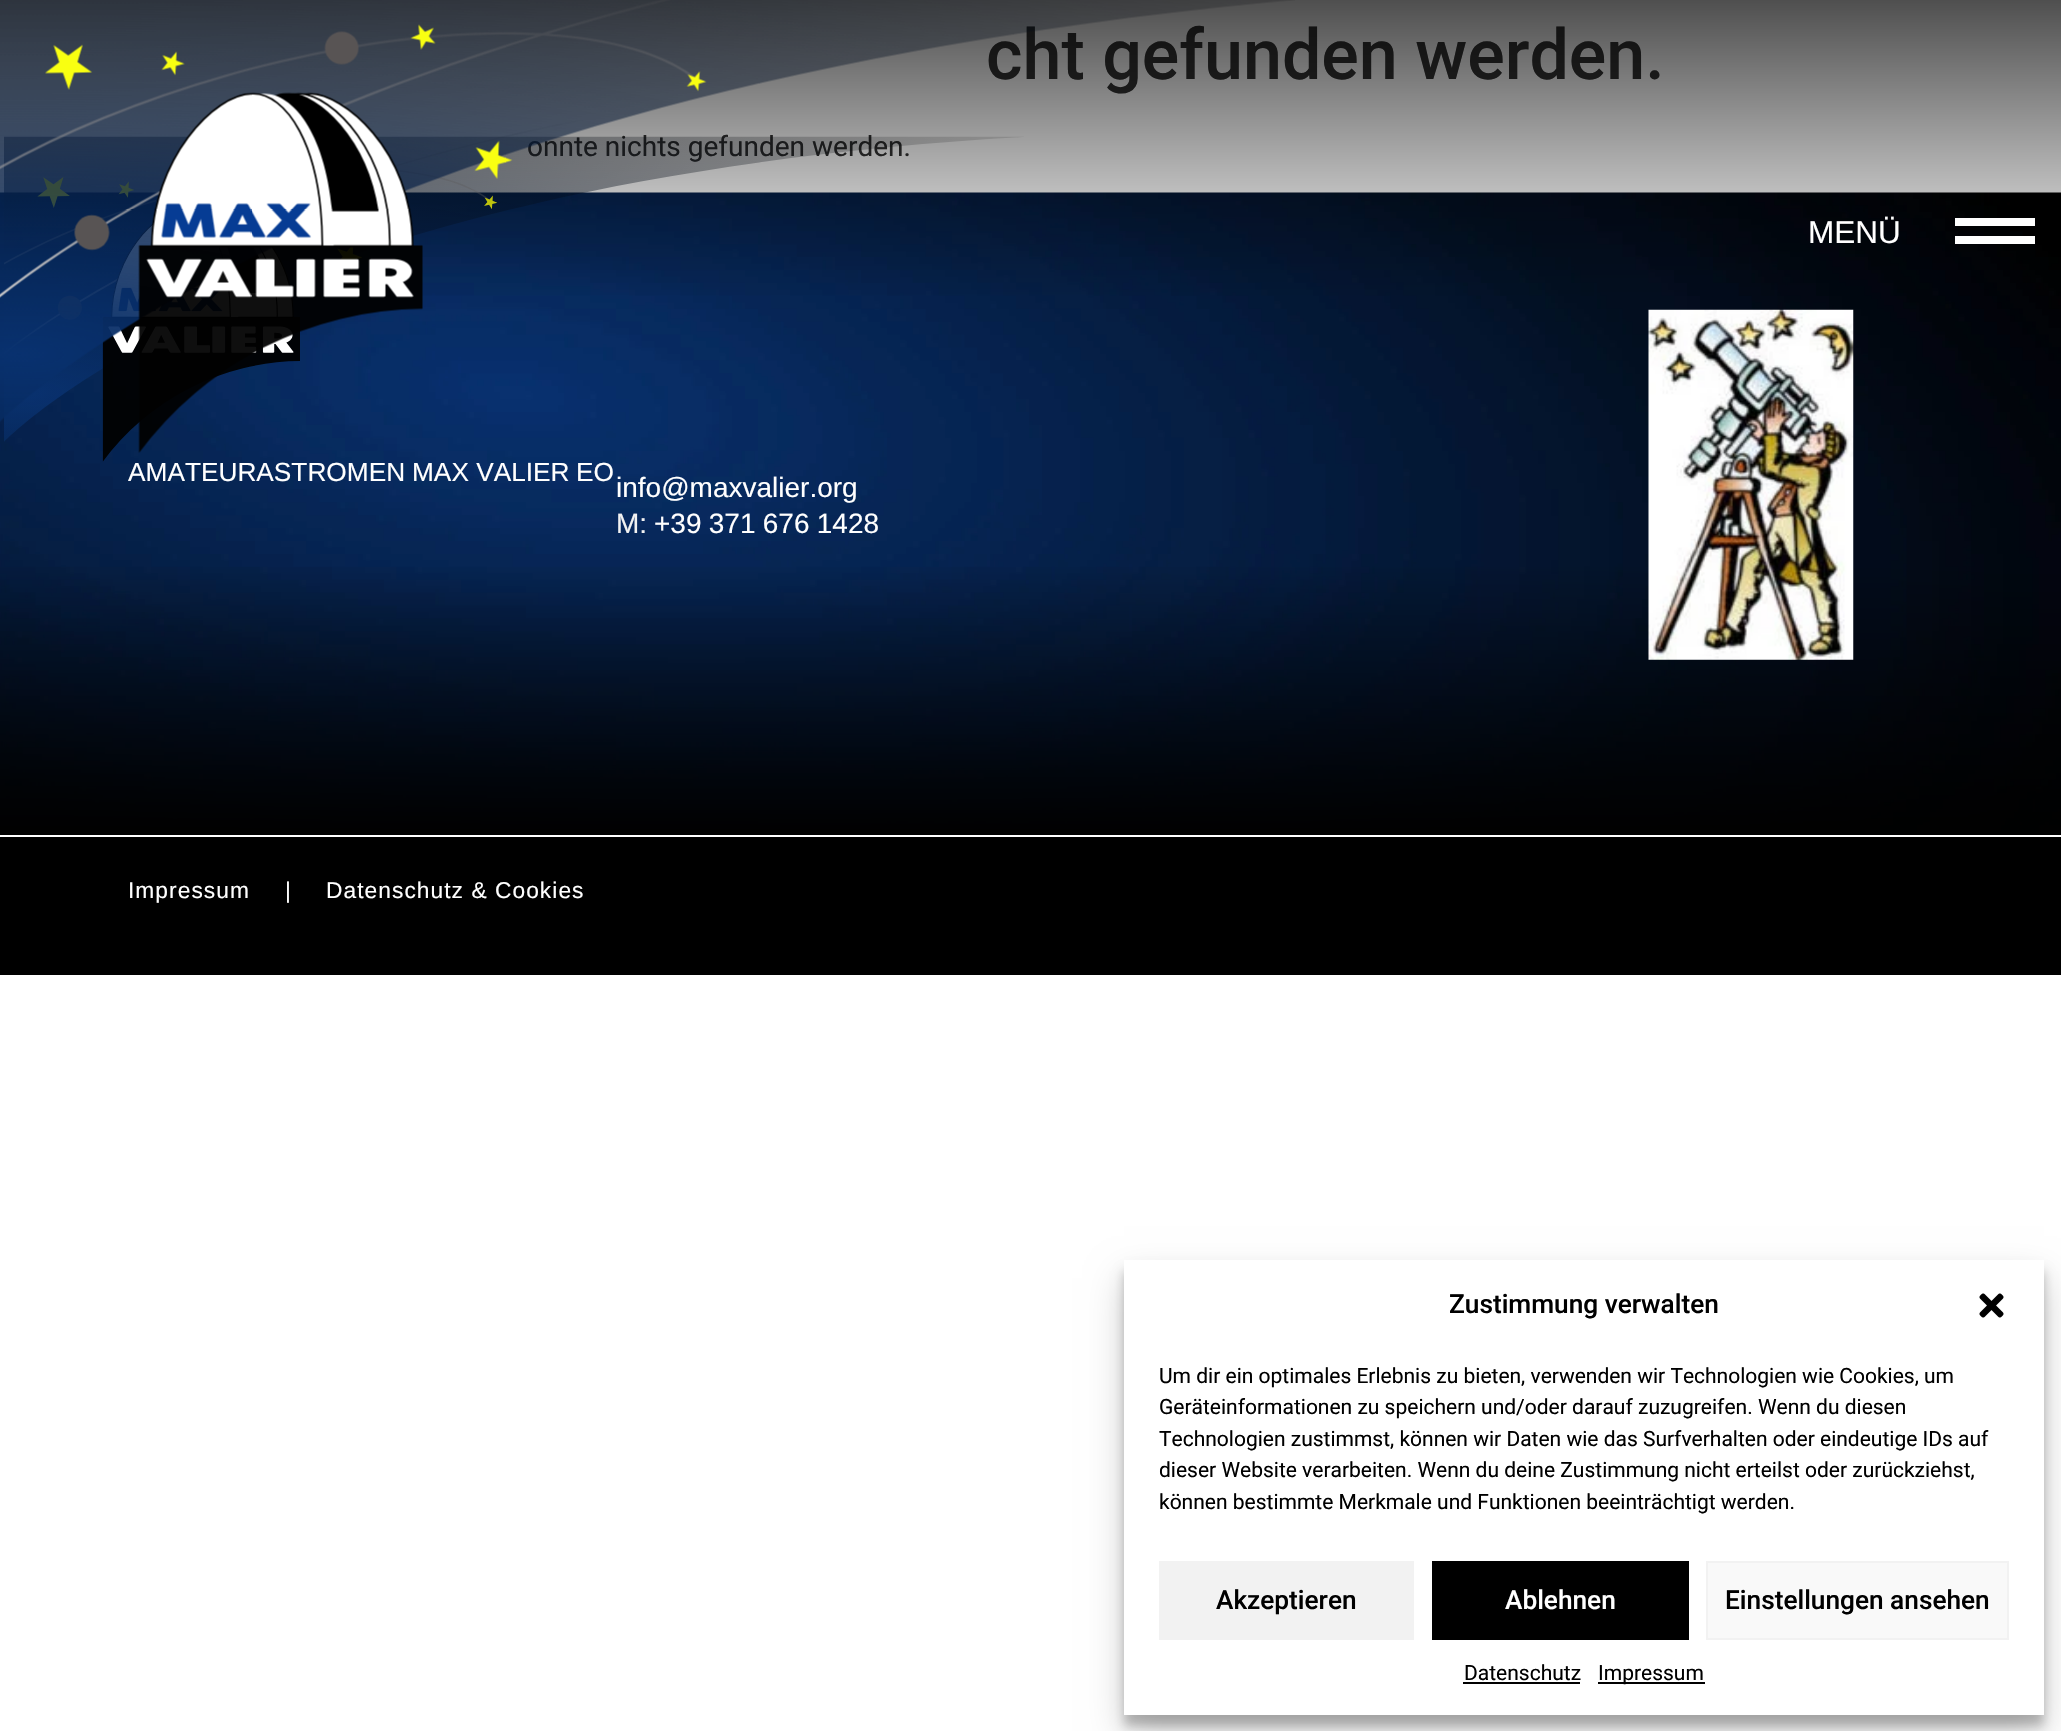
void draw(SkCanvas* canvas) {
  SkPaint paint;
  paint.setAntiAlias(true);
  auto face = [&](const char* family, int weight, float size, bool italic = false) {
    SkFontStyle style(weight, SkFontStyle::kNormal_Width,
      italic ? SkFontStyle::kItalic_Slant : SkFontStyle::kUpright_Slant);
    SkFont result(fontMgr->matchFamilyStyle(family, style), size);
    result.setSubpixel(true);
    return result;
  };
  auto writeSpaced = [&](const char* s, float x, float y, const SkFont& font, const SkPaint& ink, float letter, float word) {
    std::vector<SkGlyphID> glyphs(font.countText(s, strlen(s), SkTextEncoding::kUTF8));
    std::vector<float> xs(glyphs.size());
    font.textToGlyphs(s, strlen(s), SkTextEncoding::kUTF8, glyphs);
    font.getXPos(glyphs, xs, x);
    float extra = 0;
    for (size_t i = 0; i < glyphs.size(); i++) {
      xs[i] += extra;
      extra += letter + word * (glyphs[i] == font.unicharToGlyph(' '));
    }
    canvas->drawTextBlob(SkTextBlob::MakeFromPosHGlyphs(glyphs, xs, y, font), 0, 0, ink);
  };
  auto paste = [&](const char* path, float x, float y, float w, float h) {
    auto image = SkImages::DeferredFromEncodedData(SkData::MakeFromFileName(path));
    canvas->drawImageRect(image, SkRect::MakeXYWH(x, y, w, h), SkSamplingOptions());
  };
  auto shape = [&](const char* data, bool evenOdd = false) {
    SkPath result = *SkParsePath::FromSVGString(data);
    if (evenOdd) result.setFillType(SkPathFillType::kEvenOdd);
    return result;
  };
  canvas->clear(0xffffffff);
  paste("img/2.png", 0, 192, 2061, 641);
  {
    const SkColor colors[] = {0x00000000, 0xff000000};
    const float stops[] = {0.57f, 1};
    const SkPoint ends[] = {{1029, 192}, {1029, 835}};
    paint.setShader(SkGradientShader::MakeLinear(ends, colors, stops, 2, SkTileMode::kClamp));
    paint.setAlpha(255);
  }
  canvas->drawRect(SkRect::MakeXYWH(0, 567, 2061, 268), paint);
  paste("img/4.png", 1648, 309, 206, 351);
  paint.setShader(nullptr);
  paint.setColor(0xff000000);
  canvas->drawRect(SkRect::MakeXYWH(0, 837, 2061, 138), paint);
  canvas->save();
  canvas->clipPath(shape("M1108 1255H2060V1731H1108ZM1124 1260H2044V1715H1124Z", true), true);
  paint.setColor(0x3b000000);
  paint.setMaskFilter(SkMaskFilter::MakeBlur(kNormal_SkBlurStyle, 5));
  canvas->drawRect(SkRect::MakeXYWH(1124, 1271, 920, 455), paint);
  paint.setMaskFilter(nullptr);
  canvas->restore();
  canvas->save();
  canvas->clipPath(shape("M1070 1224H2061V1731H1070ZM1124 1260H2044V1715H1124Z", true), true);
  paint.setColor(0x30000000);
  paint.setMaskFilter(SkMaskFilter::MakeBlur(kNormal_SkBlurStyle, 17.5f));
  canvas->drawRect(SkRect::MakeXYWH(1124, 1278, 920, 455), paint);
  paint.setMaskFilter(nullptr);
  canvas->restore();
  paste("img/5.png", 1979, 1293, 25, 25);
  paint.setColor(0xfff2f2f2);
  canvas->drawRect(SkRect::MakeXYWH(1159, 1561, 255, 79), paint);
  paint.setColor(0xff000000);
  canvas->drawRect(SkRect::MakeXYWH(1432, 1561, 257, 79), paint);
  paint.setColor(0xfff9f9f9);
  canvas->drawRect(SkRect::MakeXYWH(1707, 1562, 301, 77), paint);
  paint.setStroke(true);
  paint.setStrokeWidth(2);
  paint.setColor(0xfff2f2f2);
  canvas->drawRect(SkRect::MakeXYWH(1707, 1562, 301, 77), paint);
  paint.setStroke(false);
  paint.setColor(0xff000000);
  canvas->drawRect(SkRect::MakeXYWH(1463, 1682, 117, 2), paint);
  canvas->drawRect(SkRect::MakeXYWH(1598, 1682, 107, 2), paint);
  auto f0 = face("Roboto", 500, 70);
  paint.setColor(0xff333333);
  canvas->drawString("cht gefunden werden.", 986, 79, f0, paint);
  auto f1 = face("Roboto", 400, 28);
  canvas->drawString("onnte nichts gefunden werden.", 527, 156, f1, paint);
  paste("img/3.png", 4, 120, 1020, 342);
  {
    const SkColor colors[] = {0xb0000000, 0x00000000};
    const float stops[] = {0, 1};
    const SkPoint ends[] = {{1029, 0}, {1029, 305}};
    paint.setShader(SkGradientShader::MakeLinear(ends, colors, stops, 2, SkTileMode::kClamp));
    paint.setAlpha(255);
  }
  canvas->drawRect(SkRect::MakeXYWH(0, 0, 2061, 295), paint);
  auto f2 = face("Liberation Sans", 400, 31.5f);
  paint.setShader(nullptr);
  paint.setColor(0xffffffff);
  canvas->drawString("MENÜ", 1808, 243, f2, paint);
  canvas->drawRect(SkRect::MakeXYWH(1955, 236, 80, 8), paint);
  canvas->drawRect(SkRect::MakeXYWH(1955, 218, 80, 8), paint);
  paste("img/1.png", 0, 0, 1295, 453);
  auto f3 = face("Liberation Sans", 400, 26.25f);
  {
    const struct { const char* s; float x, y; } items[] = {
      {"AMATEURASTROMEN", 128, 481},
      {"MAX VALIER", 412, 481},
      {"EO", 576, 481},
    };
    for (auto [s, x, y] : items) {
      canvas->drawString(s, x, y, f3, paint);
    }
  }
  auto f4 = face("Liberation Sans", 400, 28);
  canvas->drawString("info@maxvalier.org", 616, 497, f4, paint);
  paint.setColor(0xfff2f2f2);
  canvas->drawString("M:", 616, 533, f4, paint);
  paint.setColor(0xffffffff);
  writeSpaced("+39 371 676 1428", 654, 533, f4, paint, 0, -0.5f);
  auto f5 = face("Liberation Sans", 400, 22.75f);
  {
    const struct { const char* s; float x, y; } items[] = {
      {"Impressum", 128, 898},
      {"|", 285, 898},
      {"Datenschutz & Cookies", 326, 898},
    };
    for (auto [s, x, y] : items) {
      writeSpaced(s, x, y, f5, paint, 1.05f, 0);
    }
  }
  auto f6 = face("Roboto", 500, 26.25f);
  paint.setColor(0xff000000);
  canvas->drawString("Zustimmung verwalten", 1449, 1313, f6, paint);
  auto f7 = face("Roboto", 400, 21);
  {
    const struct { const char* s; float x, y; } items[] = {
      {"Um dir ein optimales Erlebnis zu bieten, verwenden wir Technologien wie Cookies, um", 1159, 1383},
      {"Geräteinformationen zu speichern und/oder darauf zuzugreifen. Wenn du diesen", 1159, 1414},
      {"Technologien zustimmst, können wir Daten wie das Surfverhalten oder eindeutige IDs auf", 1159, 1446},
      {"dieser Website verarbeiten. Wenn du deine Zustimmung nicht erteilst oder zurückziehst,", 1159, 1477},
      {"können bestimmte Merkmale und Funktionen beeinträchtigt werden.", 1159, 1509},
    };
    for (auto [s, x, y] : items) {
      canvas->drawString(s, x, y, f7, paint);
    }
  }
  canvas->drawString("Akzeptieren", 1216, 1609, f6, paint);
  paint.setColor(0xffffffff);
  canvas->drawString("Ablehnen", 1505, 1609, f6, paint);
  paint.setColor(0xff000000);
  canvas->drawString("Einstellungen ansehen", 1725, 1609, f6, paint);
  canvas->drawString("Datenschutz", 1464, 1680, f7, paint);
  canvas->drawString("Impressum", 1598, 1680, f7, paint);
}
